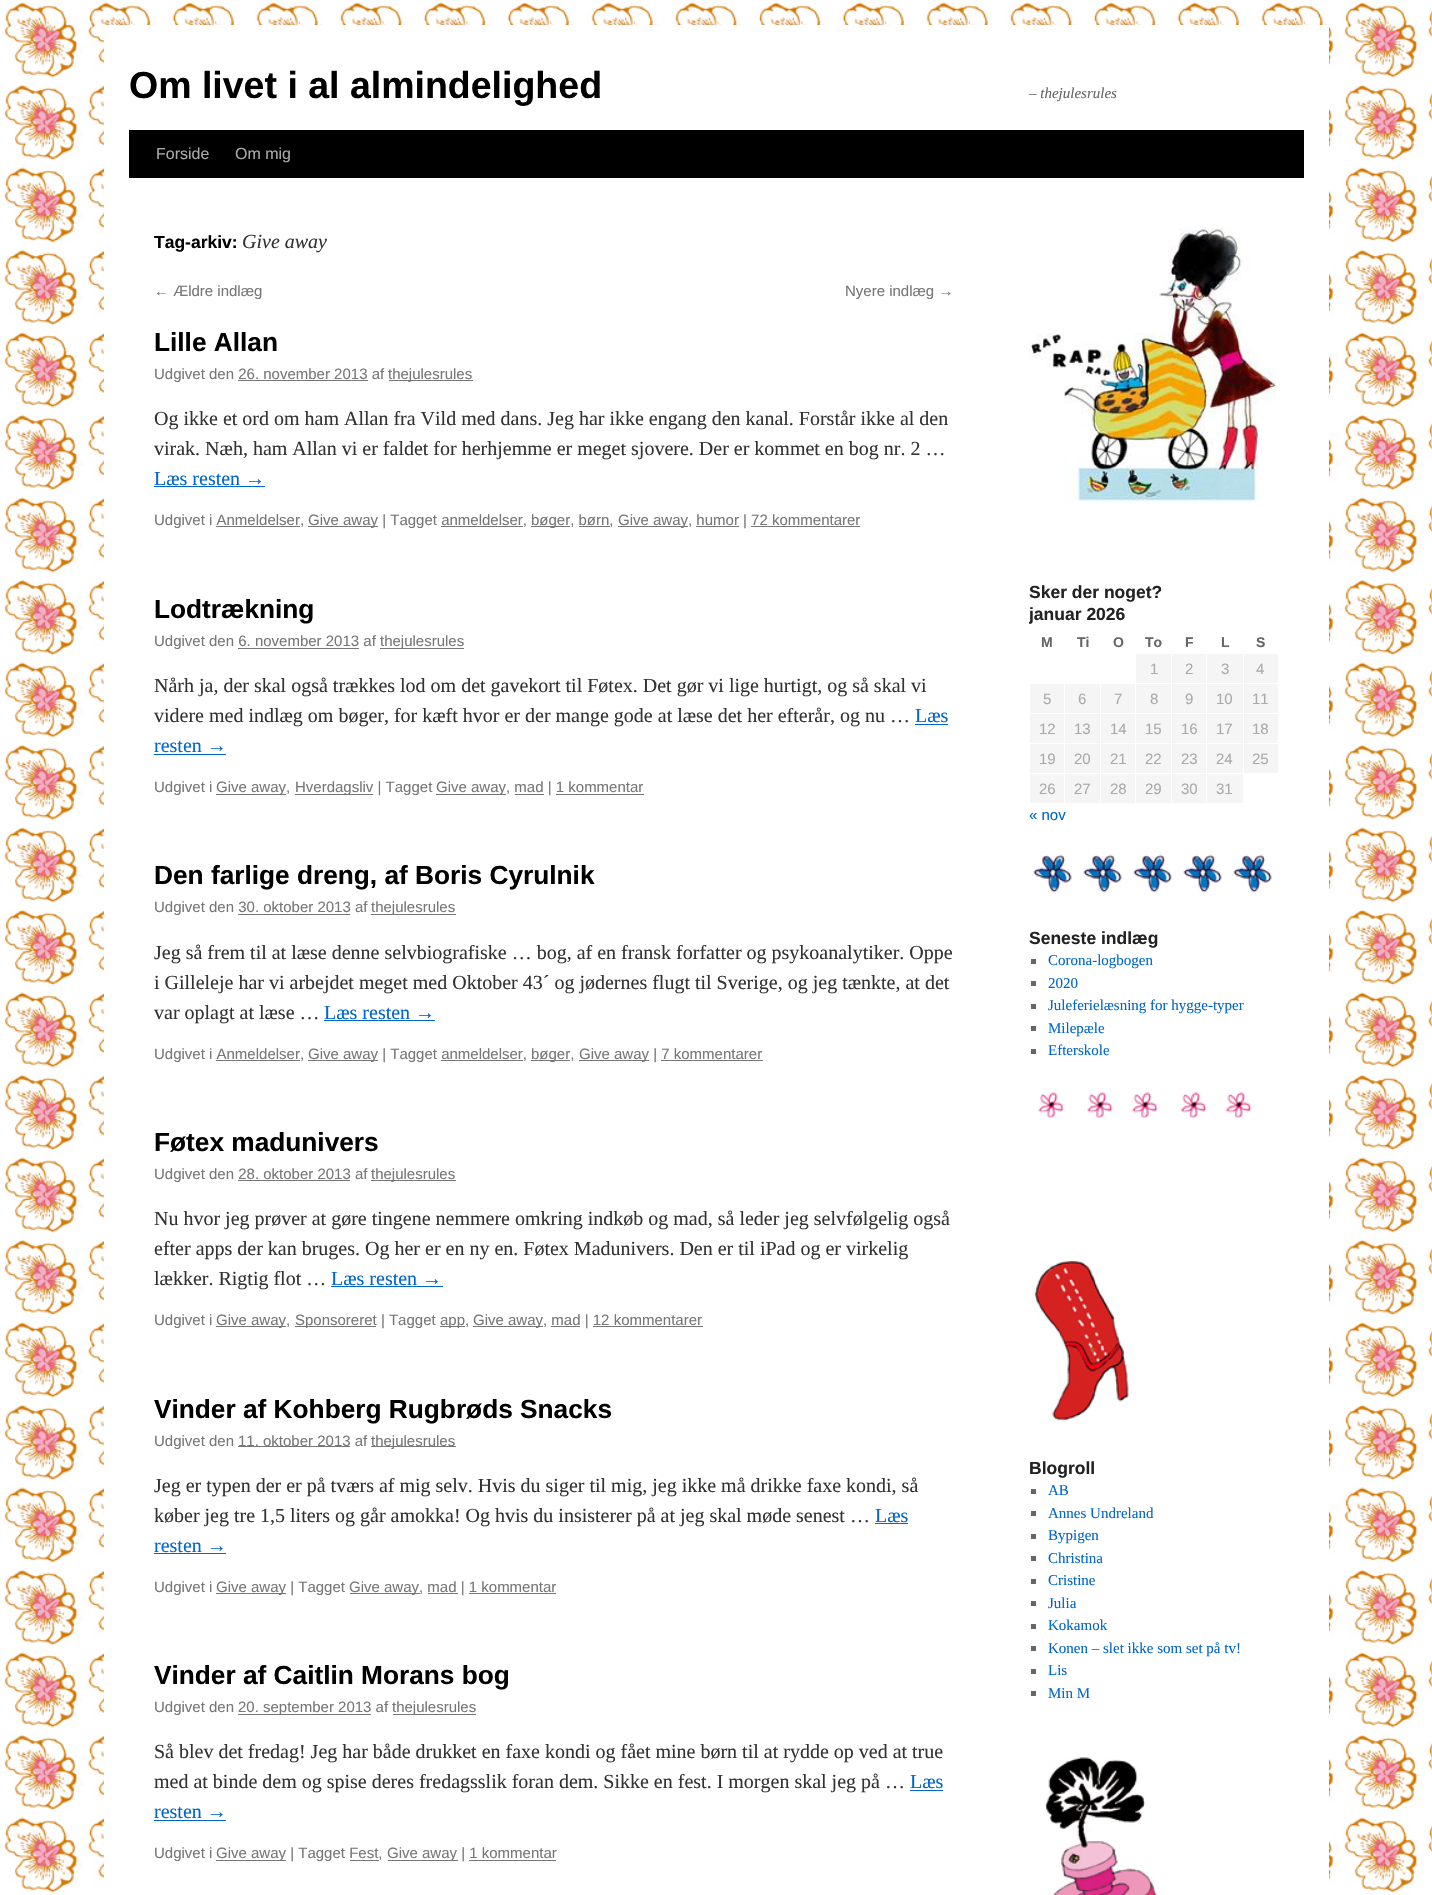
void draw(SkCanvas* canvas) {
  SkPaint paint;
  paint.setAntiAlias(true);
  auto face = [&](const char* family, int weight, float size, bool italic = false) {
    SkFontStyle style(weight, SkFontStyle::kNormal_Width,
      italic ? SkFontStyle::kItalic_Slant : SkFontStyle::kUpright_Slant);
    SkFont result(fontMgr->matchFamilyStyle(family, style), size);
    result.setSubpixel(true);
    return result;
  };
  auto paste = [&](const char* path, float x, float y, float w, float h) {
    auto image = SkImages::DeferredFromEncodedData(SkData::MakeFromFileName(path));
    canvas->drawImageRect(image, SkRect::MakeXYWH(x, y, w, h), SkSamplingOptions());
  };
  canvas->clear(0xffffffff);
  paste("img/1.png", 0, 0, 1432, 1895);
  {
    const struct { float x, y, w, h; SkColor color; } items[] = {
      {104, 25, 1225, 1870, 0xffffffff},
      {129, 130, 1175, 48, 0xff000000},
      {389, 380, 84, 1, 0xff777777},
      {238, 380, 130, 1, 0xff777777},
      {154, 486, 111, 1, 0xff0066cc},
      {216, 526, 84, 1, 0xff777777},
      {308, 526, 70, 1, 0xff777777},
      {441, 526, 82, 1, 0xff777777},
      {531, 526, 39, 1, 0xff777777},
      {579, 526, 31, 1, 0xff777777},
      {618, 526, 70, 1, 0xff777777},
      {696, 526, 43, 1, 0xff777777},
      {751, 526, 109, 1, 0xff777777},
      {380, 648, 84, 1, 0xff777777},
      {238, 648, 121, 1, 0xff777777},
      {915, 724, 33, 1, 0xff0066cc},
      {154, 754, 72, 1, 0xff0066cc},
      {216, 794, 70, 1, 0xff777777},
      {295, 794, 78, 1, 0xff777777},
      {436, 794, 70, 1, 0xff777777},
      {515, 794, 29, 1, 0xff777777},
      {556, 794, 88, 1, 0xff777777},
      {371, 914, 85, 1, 0xff777777},
      {238, 914, 112, 1, 0xff777777},
      {324, 1020, 111, 1, 0xff0066cc},
      {216, 1060, 84, 1, 0xff777777},
      {308, 1060, 70, 1, 0xff777777},
      {441, 1060, 82, 1, 0xff777777},
      {531, 1060, 39, 1, 0xff777777},
      {579, 1060, 70, 1, 0xff777777},
      {661, 1060, 102, 1, 0xff777777},
      {371, 1180, 85, 1, 0xff777777},
      {238, 1180, 112, 1, 0xff777777},
      {331, 1286, 112, 1, 0xff0066cc},
      {216, 1326, 70, 1, 0xff777777},
      {295, 1326, 81, 1, 0xff777777},
      {440, 1326, 25, 1, 0xff777777},
      {473, 1326, 70, 1, 0xff777777},
      {551, 1326, 29, 1, 0xff777777},
      {593, 1326, 110, 1, 0xff777777},
      {238, 1446, 112, 1, 0xff777777},
      {371, 1446, 85, 1, 0xff777777},
      {875, 1523, 33, 1, 0xff0066cc},
      {154, 1553, 72, 1, 0xff0066cc},
      {216, 1593, 70, 1, 0xff777777},
      {350, 1593, 70, 1, 0xff777777},
      {428, 1593, 30, 1, 0xff777777},
      {469, 1593, 87, 1, 0xff777777},
      {238, 1714, 133, 1, 0xff777777},
      {393, 1714, 83, 1, 0xff777777},
      {910, 1790, 33, 1, 0xff0066cc},
      {154, 1820, 72, 1, 0xff0066cc},
      {216, 1860, 70, 1, 0xff777777},
      {350, 1860, 29, 1, 0xff777777},
      {388, 1860, 70, 1, 0xff777777},
      {469, 1860, 87, 1, 0xff777777},
    };
    for (auto [x, y, w, h, color] : items) {
      paint.setColor(color);
      canvas->drawRect(SkRect::MakeXYWH(x, y, w, h), paint);
    }
  }
  paste("img/2.png", 1029, 228, 247, 275);
  {
    const struct { float x, y, w, h; SkColor color; } items[] = {
      {1136, 654, 35, 29, 0xfff5f5f5},
      {1172, 654, 71, 29, 0xfff5f5f5},
      {1244, 654, 34, 29, 0xfff5f5f5},
      {1030, 684, 34, 29, 0xfff5f5f5},
      {1065, 684, 35, 29, 0xfff5f5f5},
      {1101, 684, 34, 29, 0xfff5f5f5},
      {1136, 684, 35, 29, 0xfff5f5f5},
      {1172, 684, 71, 29, 0xfff5f5f5},
      {1244, 684, 34, 29, 0xfff5f5f5},
      {1030, 714, 34, 29, 0xfff5f5f5},
      {1065, 714, 35, 29, 0xfff5f5f5},
      {1101, 714, 34, 29, 0xfff5f5f5},
      {1136, 714, 35, 29, 0xfff5f5f5},
      {1172, 714, 71, 29, 0xfff5f5f5},
      {1244, 714, 34, 29, 0xfff5f5f5},
      {1030, 744, 34, 29, 0xfff5f5f5},
      {1065, 744, 35, 29, 0xfff5f5f5},
      {1101, 744, 34, 29, 0xfff5f5f5},
      {1136, 744, 35, 29, 0xfff5f5f5},
      {1172, 744, 71, 29, 0xfff5f5f5},
      {1244, 744, 34, 29, 0xfff5f5f5},
      {1030, 774, 34, 29, 0xfff5f5f5},
      {1065, 774, 35, 29, 0xfff5f5f5},
      {1101, 774, 34, 29, 0xfff5f5f5},
      {1136, 774, 35, 29, 0xfff5f5f5},
      {1172, 774, 71, 29, 0xfff5f5f5},
      {1206, 653, 1, 151, 0xffffffff},
    };
    for (auto [x, y, w, h, color] : items) {
      paint.setColor(color);
      canvas->drawRect(SkRect::MakeXYWH(x, y, w, h), paint);
    }
  }
  paste("img/3.png", 1033, 854, 39, 39);
  paste("img/4.png", 1083, 854, 39, 39);
  paste("img/4.png", 1133, 854, 39, 39);
  paste("img/3.png", 1183, 854, 39, 39);
  paste("img/3.png", 1233, 854, 39, 39);
  {
    const struct { float x, y, w, h; SkColor color; } items[] = {
      {1031, 959, 5, 5, 0xff666666},
      {1031, 981, 5, 5, 0xff666666},
      {1031, 1004, 5, 5, 0xff666666},
      {1031, 1026, 5, 5, 0xff666666},
      {1031, 1049, 5, 5, 0xff666666},
    };
    for (auto [x, y, w, h, color] : items) {
      paint.setColor(color);
      canvas->drawRect(SkRect::MakeXYWH(x, y, w, h), paint);
    }
  }
  paste("img/5.png", 1038, 1092, 28, 26);
  paste("img/6.png", 1087, 1092, 28, 26);
  paste("img/6.png", 1132, 1092, 28, 26);
  paste("img/7.png", 1181, 1092, 28, 26);
  paste("img/7.png", 1226, 1092, 28, 26);
  paste("img/8.png", 1034, 1260, 95, 161);
  {
    const struct { float x, y, w, h; SkColor color; } items[] = {
      {1031, 1489, 5, 5, 0xff666666},
      {1031, 1511, 5, 5, 0xff666666},
      {1031, 1534, 5, 5, 0xff666666},
      {1031, 1556, 5, 5, 0xff666666},
      {1031, 1579, 5, 5, 0xff666666},
      {1031, 1601, 5, 5, 0xff666666},
      {1031, 1624, 5, 5, 0xff666666},
      {1031, 1646, 5, 5, 0xff666666},
      {1031, 1669, 5, 5, 0xff666666},
      {1031, 1691, 5, 5, 0xff666666},
    };
    for (auto [x, y, w, h, color] : items) {
      paint.setColor(color);
      canvas->drawRect(SkRect::MakeXYWH(x, y, w, h), paint);
    }
  }
  paste("img/9.png", 1045, 1757, 113, 138);
  auto f0 = face("Liberation Sans", 700, 37.5f);
  paint.setColor(0xff000000);
  canvas->drawString("Om livet i al almindelighed", 129, 98, f0, paint);
  auto f1 = face("Liberation Serif", 400, 15, true);
  paint.setColor(0xff666666);
  canvas->drawString("– thejulesrules", 1029, 98, f1, paint);
  auto f2 = face("Liberation Sans", 400, 16);
  paint.setColor(0xffaaaaaa);
  canvas->drawString("Forside", 156, 159, f2, paint);
  canvas->drawString("Om mig", 235, 159, f2, paint);
  auto f3 = face("Liberation Sans", 700, 17.5f);
  paint.setColor(0xff000000);
  canvas->drawString("Tag-arkiv:", 154, 248, f3, paint);
  auto f4 = face("Liberation Serif", 400, 20, true);
  paint.setColor(0xff333333);
  canvas->drawString("Give away", 242, 248, f4, paint);
  auto f5 = face("Liberation Sans", 400, 15);
  paint.setColor(0xff777777);
  canvas->drawString("← Ældre indlæg", 154, 296, f5, paint);
  canvas->drawString("Nyere indlæg →", 845, 296, f5, paint);
  auto f6 = face("Liberation Sans", 700, 26.25f);
  paint.setColor(0xff000000);
  canvas->drawString("Lille Allan", 154, 351, f6, paint);
  paint.setColor(0xff777777);
  canvas->drawString("Udgivet den 26. november 2013 af", 154, 379, f5, paint);
  canvas->drawString("thejulesrules", 388, 379, f5, paint);
  auto f7 = face("Liberation Serif", 400, 20);
  paint.setColor(0xff333333);
  canvas->drawString("Og ikke et ord om ham Allan fra Vild med dans. Jeg har ikke engang den kanal. Forstår ikke al den", 154, 425, f7, paint);
  canvas->drawString("virak. Næh, ham Allan vi er faldet for herhjemme er meget sjovere. Der er kommet en bog nr. 2 …", 154, 455, f7, paint);
  paint.setColor(0xff0066cc);
  canvas->drawString("Læs resten →", 154, 485, f7, paint);
  paint.setColor(0xff777777);
  {
    const struct { const char* s; float x, y; } items[] = {
      {"Udgivet i Anmeldelser,", 154, 525},
      {"Give away | Tagget anmeldelser,", 308, 525},
      {"bøger, børn,", 531, 525},
      {"Give away, humor | 72 kommentarer", 618, 525},
    };
    for (auto [s, x, y] : items) {
      canvas->drawString(s, x, y, f5, paint);
    }
  }
  paint.setColor(0xff000000);
  canvas->drawString("Lodtrækning", 154, 618, f6, paint);
  paint.setColor(0xff777777);
  canvas->drawString("Udgivet den 6. november 2013 af", 154, 646, f5, paint);
  canvas->drawString("thejulesrules", 380, 646, f5, paint);
  paint.setColor(0xff333333);
  canvas->drawString("Nårh ja, der skal også trækkes lod om det gavekort til Føtex. Det gør vi lige hurtigt, og så skal vi", 154, 692, f7, paint);
  canvas->drawString("videre med indlæg om bøger, for kæft hvor er der mange gode at læse det her efterår, og nu …", 154, 722, f7, paint);
  paint.setColor(0xff0066cc);
  canvas->drawString("Læs", 915, 722, f7, paint);
  canvas->drawString("resten →", 154, 752, f7, paint);
  paint.setColor(0xff777777);
  {
    const struct { const char* s; float x, y; } items[] = {
      {"Udgivet i", 154, 792},
      {"Give away,", 216, 792},
      {"Hverdagsliv | Tagget", 295, 792},
      {"Give away, mad | 1 kommentar", 436, 792},
    };
    for (auto [s, x, y] : items) {
      canvas->drawString(s, x, y, f5, paint);
    }
  }
  paint.setColor(0xff000000);
  canvas->drawString("Den farlige dreng, af Boris Cyrulnik", 154, 884, f6, paint);
  paint.setColor(0xff777777);
  canvas->drawString("Udgivet den 30. oktober 2013 af", 154, 912, f5, paint);
  canvas->drawString("thejulesrules", 371, 912, f5, paint);
  paint.setColor(0xff333333);
  {
    const struct { const char* s; float x, y; } items[] = {
      {"Jeg så frem til at læse denne selvbiografiske … bog, af en fransk forfatter og psykoanalytiker. Oppe", 154, 959},
      {"i Gilleleje har vi arbejdet meget med Oktober 43´ og jødernes flugt til Sverige, og jeg tænkte, at det", 154, 989},
      {"var oplagt at læse …", 154, 1019},
    };
    for (auto [s, x, y] : items) {
      canvas->drawString(s, x, y, f7, paint);
    }
  }
  paint.setColor(0xff0066cc);
  canvas->drawString("Læs resten →", 324, 1019, f7, paint);
  paint.setColor(0xff777777);
  {
    const struct { const char* s; float x, y; } items[] = {
      {"Udgivet i Anmeldelser,", 154, 1059},
      {"Give away | Tagget anmeldelser,", 308, 1059},
      {"bøger,", 531, 1059},
      {"Give away | 7 kommentarer", 579, 1059},
    };
    for (auto [s, x, y] : items) {
      canvas->drawString(s, x, y, f5, paint);
    }
  }
  paint.setColor(0xff000000);
  canvas->drawString("Føtex madunivers", 154, 1151, f6, paint);
  paint.setColor(0xff777777);
  canvas->drawString("Udgivet den 28. oktober 2013 af", 154, 1179, f5, paint);
  canvas->drawString("thejulesrules", 371, 1179, f5, paint);
  paint.setColor(0xff333333);
  {
    const struct { const char* s; float x, y; } items[] = {
      {"Nu hvor jeg prøver at gøre tingene nemmere omkring indkøb og mad, så leder jeg selvfølgelig også", 154, 1225},
      {"efter apps der kan bruges. Og her er en ny en. Føtex Madunivers. Den er til iPad og er virkelig", 154, 1255},
      {"lækker. Rigtig flot …", 154, 1285},
    };
    for (auto [s, x, y] : items) {
      canvas->drawString(s, x, y, f7, paint);
    }
  }
  paint.setColor(0xff0066cc);
  canvas->drawString("Læs resten →", 331, 1285, f7, paint);
  paint.setColor(0xff777777);
  {
    const struct { const char* s; float x, y; } items[] = {
      {"Udgivet i", 154, 1325},
      {"Give away,", 216, 1325},
      {"Sponsoreret | Tagget", 295, 1325},
      {"app,", 440, 1325},
      {"Give away, mad | 12 kommentarer", 473, 1325},
    };
    for (auto [s, x, y] : items) {
      canvas->drawString(s, x, y, f5, paint);
    }
  }
  paint.setColor(0xff000000);
  canvas->drawString("Vinder af Kohberg Rugbrøds Snacks", 154, 1418, f6, paint);
  paint.setColor(0xff777777);
  {
    const struct { const char* s; float x, y; } items[] = {
      {"Udgivet den", 154, 1446},
      {"11. oktober 2013 af", 238, 1446},
      {"thejulesrules", 371, 1446},
    };
    for (auto [s, x, y] : items) {
      canvas->drawString(s, x, y, f5, paint);
    }
  }
  paint.setColor(0xff333333);
  canvas->drawString("Jeg er typen der er på tværs af mig selv. Hvis du siger til mig, jeg ikke må drikke faxe kondi, så", 154, 1492, f7, paint);
  canvas->drawString("køber jeg tre 1,5 liters og går amokka! Og hvis du insisterer på at jeg skal møde senest …", 154, 1522, f7, paint);
  paint.setColor(0xff0066cc);
  canvas->drawString("Læs", 875, 1522, f7, paint);
  canvas->drawString("resten →", 154, 1552, f7, paint);
  paint.setColor(0xff777777);
  {
    const struct { const char* s; float x, y; } items[] = {
      {"Udgivet i", 154, 1592},
      {"Give away | Tagget", 216, 1592},
      {"Give away, mad | 1 kommentar", 349, 1592},
    };
    for (auto [s, x, y] : items) {
      canvas->drawString(s, x, y, f5, paint);
    }
  }
  paint.setColor(0xff000000);
  canvas->drawString("Vinder af Caitlin Morans bog", 154, 1684, f6, paint);
  paint.setColor(0xff777777);
  {
    const struct { const char* s; float x, y; } items[] = {
      {"Udgivet den", 154, 1712},
      {"20. september 2013 af", 238, 1712},
      {"thejulesrules", 392, 1712},
    };
    for (auto [s, x, y] : items) {
      canvas->drawString(s, x, y, f5, paint);
    }
  }
  paint.setColor(0xff333333);
  canvas->drawString("Så blev det fredag! Jeg har både drukket en faxe kondi og fået mine børn til at rydde op ved at true", 154, 1758, f7, paint);
  canvas->drawString("med at binde dem og spise deres fredagsslik foran dem. Sikke en fest. I morgen skal jeg på …", 154, 1788, f7, paint);
  paint.setColor(0xff0066cc);
  canvas->drawString("Læs", 910, 1788, f7, paint);
  canvas->drawString("resten →", 154, 1818, f7, paint);
  paint.setColor(0xff777777);
  {
    const struct { const char* s; float x, y; } items[] = {
      {"Udgivet i", 154, 1858},
      {"Give away | Tagget Fest,", 216, 1858},
      {"Give away | 1 kommentar", 387, 1858},
    };
    for (auto [s, x, y] : items) {
      canvas->drawString(s, x, y, f5, paint);
    }
  }
  paint.setColor(0xff222222);
  canvas->drawString("Sker der noget?", 1029, 598, f3, paint);
  canvas->save();
  canvas->clipRect(SkRect::MakeXYWH(1029, 228, 275, 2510));
  canvas->drawString("januar 2026", 1029, 620, f3, paint);
  canvas->restore();
  auto f8 = face("Liberation Sans", 700, 14);
  paint.setColor(0xff666666);
  {
    const struct { const char* s; float x, y; } items[] = {
      {"M", 1041, 647},
      {"Ti", 1077, 647},
      {"O", 1113, 647},
      {"To", 1145, 647},
      {"F", 1185, 647},
      {"L", 1221, 647},
      {"S", 1256, 647},
    };
    for (auto [s, x, y] : items) {
      canvas->drawString(s, x, y, f8, paint);
    }
  }
  paint.setColor(0xffaaaaaa);
  {
    const struct { const char* s; float x, y; } items[] = {
      {"1", 1150, 674},
      {"2", 1185, 674},
      {"3", 1221, 674},
      {"4", 1256, 674},
      {"5", 1043, 704},
      {"6", 1078, 704},
      {"7", 1114, 704},
      {"8", 1150, 704},
      {"9", 1185, 704},
      {"10", 1216, 704},
      {"11", 1252, 704},
      {"12", 1039, 734},
      {"13", 1074, 734},
      {"14", 1110, 734},
      {"15", 1145, 734},
      {"16", 1181, 734},
      {"17", 1216, 734},
      {"18", 1252, 734},
      {"19", 1039, 764},
      {"20", 1074, 764},
      {"21", 1110, 764},
      {"22", 1145, 764},
      {"23", 1181, 764},
      {"24", 1216, 764},
      {"25", 1252, 764},
      {"26", 1039, 794},
      {"27", 1074, 794},
      {"28", 1110, 794},
      {"29", 1145, 794},
      {"30", 1181, 794},
      {"31", 1216, 794},
    };
    for (auto [s, x, y] : items) {
      canvas->drawString(s, x, y, f5, paint);
    }
  }
  paint.setColor(0xff0066cc);
  canvas->drawString("« nov", 1029, 820, f5, paint);
  paint.setColor(0xff222222);
  canvas->drawString("Seneste indlæg", 1029, 944, f3, paint);
  auto f9 = face("Liberation Serif", 400, 15);
  paint.setColor(0xff0066cc);
  {
    const struct { const char* s; float x, y; } items[] = {
      {"Corona-logbogen", 1048, 965},
      {"2020", 1048, 988},
      {"Juleferielæsning for hygge-typer", 1048, 1010},
      {"Milepæle", 1048, 1033},
      {"Efterskole", 1048, 1055},
    };
    for (auto [s, x, y] : items) {
      canvas->drawString(s, x, y, f9, paint);
    }
  }
  paint.setColor(0xff222222);
  canvas->drawString("Blogroll", 1029, 1474, f3, paint);
  paint.setColor(0xff0066cc);
  {
    const struct { const char* s; float x, y; } items[] = {
      {"AB", 1048, 1495},
      {"Annes Undreland", 1048, 1518},
      {"Bypigen", 1048, 1540},
      {"Christina", 1048, 1563},
      {"Cristine", 1048, 1585},
      {"Julia", 1048, 1608},
      {"Kokamok", 1048, 1630},
      {"Konen – slet ikke som set på tv!", 1048, 1653},
      {"Lis", 1048, 1675},
      {"Min M", 1048, 1698},
    };
    for (auto [s, x, y] : items) {
      canvas->drawString(s, x, y, f9, paint);
    }
  }
}
